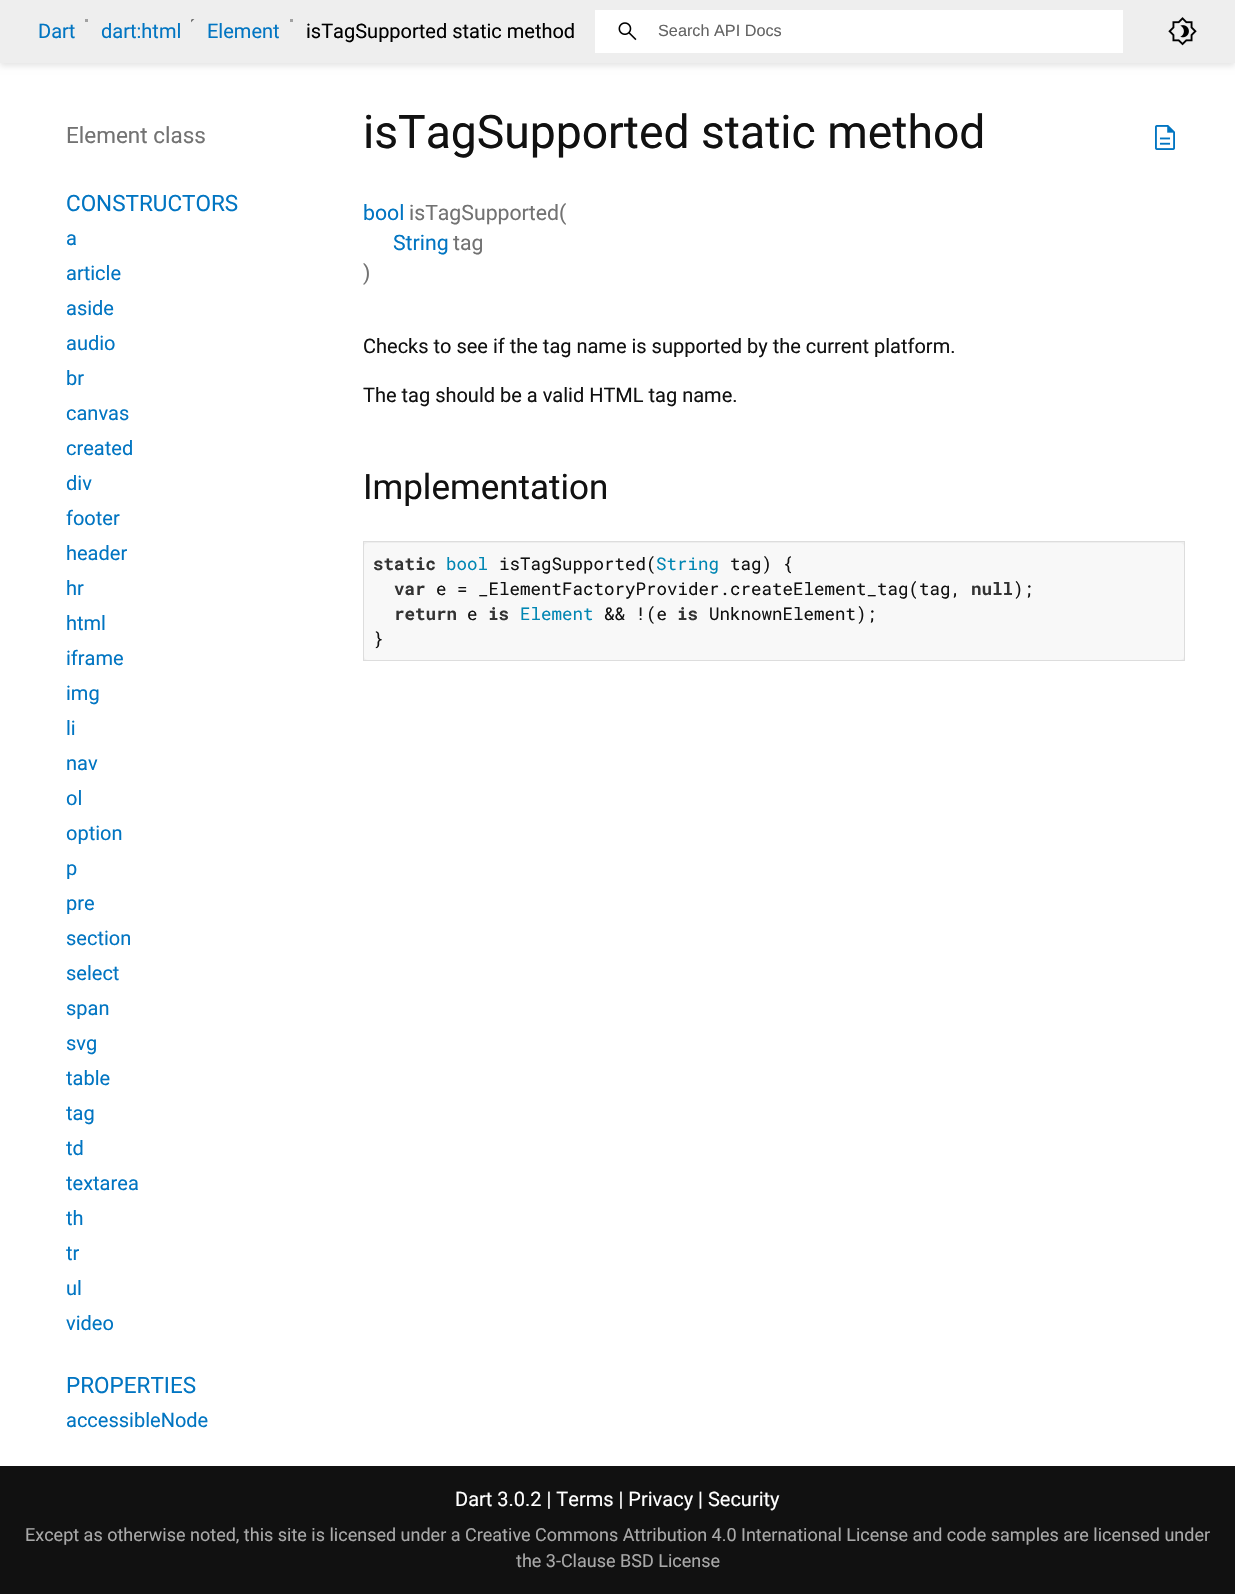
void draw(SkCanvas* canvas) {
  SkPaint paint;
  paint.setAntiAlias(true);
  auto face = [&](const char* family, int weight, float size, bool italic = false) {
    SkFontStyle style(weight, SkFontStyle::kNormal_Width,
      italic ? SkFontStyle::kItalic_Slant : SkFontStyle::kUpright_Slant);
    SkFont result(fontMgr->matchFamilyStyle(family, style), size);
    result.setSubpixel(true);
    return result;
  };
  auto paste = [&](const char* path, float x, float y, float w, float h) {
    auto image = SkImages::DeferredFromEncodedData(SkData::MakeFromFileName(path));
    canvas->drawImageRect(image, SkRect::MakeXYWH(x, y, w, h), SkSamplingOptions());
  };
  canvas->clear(0xffffffff);
  paint.setColor(0x1a000000);
  paint.setMaskFilter(SkMaskFilter::MakeBlur(kNormal_SkBlurStyle, 3));
  canvas->drawRect(SkRect::MakeXYWH(0, 4, 1235, 62), paint);
  paint.setMaskFilter(nullptr);
  paint.setColor(0xffeeeeee);
  canvas->drawRect(SkRect::MakeXYWH(0, 0, 1235, 63), paint);
  paint.setColor(0xffa1a1a1);
  canvas->drawRect(SkRect::MakeXYWH(85, 19, 3, 3), paint);
  paste("img/1.png", 191, 19, 4, 4);
  canvas->drawRect(SkRect::MakeXYWH(290, 19, 3, 3), paint);
  paint.setColor(0xffffffff);
  canvas->drawRect(SkRect::MakeXYWH(595, 10, 528, 43), paint);
  paste("img/2.png", 618, 22, 19, 19);
  paste("img/3.png", 1168, 17, 29, 29);
  paste("img/4.png", 1155, 125, 20, 25);
  paint.setColor(0xffeeeeee);
  canvas->drawRect(SkRect::MakeXYWH(363.5f, 541.5f, 821, 119), paint);
  paint.setStroke(true);
  paint.setStrokeWidth(1);
  paint.setColor(0xffdddddd);
  canvas->drawRect(SkRect::MakeXYWH(363.5f, 541.5f, 821, 119), paint);
  paint.setStroke(false);
  paint.setColor(0xfff8f8f8);
  canvas->drawRoundRect(SkRect::MakeXYWH(364, 543, 820, 117), 4, 4, paint);
  paint.setColor(0xff111111);
  canvas->drawRect(SkRect::MakeXYWH(0, 1466, 1235, 128), paint);
  auto f0 = face("Roboto", 400, 20);
  paint.setColor(0xff0175c2);
  {
    const struct { const char* s; float x, y; } items[] = {
      {"Dart", 38, 38},
      {"dart:html", 101, 38},
      {"Element", 207, 38},
    };
    for (auto [s, x, y] : items) {
      canvas->drawString(s, x, y, f0, paint);
    }
  }
  paint.setColor(0xff000000);
  canvas->drawString("isTagSupported static method", 306, 38, f0, paint);
  auto f1 = face("Liberation Sans", 400, 16.25f);
  paint.setColor(0xff636363);
  canvas->drawString("Search API Docs", 658, 36, f1, paint);
  auto f2 = face("Roboto", 400, 22.5f);
  paint.setColor(0xff727272);
  canvas->drawString("Element class", 66, 143, f2, paint);
  paint.setColor(0xff0175c2);
  canvas->drawString("CONSTRUCTORS", 66, 211, f2, paint);
  {
    const struct { const char* s; float x, y; } items[] = {
      {"a", 66, 245},
      {"article", 66, 280},
      {"aside", 66, 315},
      {"audio", 66, 350},
      {"br", 66, 385},
      {"canvas", 66, 420},
      {"created", 66, 455},
      {"div", 66, 490},
      {"footer", 66, 525},
      {"header", 66, 560},
      {"hr", 66, 595},
      {"html", 66, 630},
      {"iframe", 66, 665},
      {"img", 66, 700},
      {"li", 66, 735},
      {"nav", 66, 770},
      {"ol", 66, 805},
      {"option", 66, 840},
      {"p", 66, 875},
      {"pre", 66, 910},
      {"section", 66, 945},
      {"select", 66, 980},
      {"span", 66, 1015},
      {"svg", 66, 1050},
      {"table", 66, 1085},
      {"tag", 66, 1120},
      {"td", 66, 1155},
      {"textarea", 66, 1190},
      {"th", 66, 1225},
      {"tr", 66, 1260},
      {"ul", 66, 1295},
      {"video", 66, 1330},
    };
    for (auto [s, x, y] : items) {
      canvas->drawString(s, x, y, f0, paint);
    }
  }
  canvas->drawString("PROPERTIES", 66, 1393, f2, paint);
  canvas->drawString("accessibleNode", 66, 1427, f0, paint);
  auto f3 = face("Roboto", 400, 46.25f);
  paint.setColor(0xff111111);
  canvas->drawString("isTagSupported static method", 363, 148, f3, paint);
  auto f4 = face("Roboto", 400, 21.25f);
  paint.setColor(0xff0175c2);
  canvas->drawString("bool", 363, 220, f4, paint);
  paint.setColor(0xff727272);
  canvas->drawString("isTagSupported(", 409, 220, f4, paint);
  paint.setColor(0xff0175c2);
  canvas->drawString("String", 393, 250, f4, paint);
  paint.setColor(0xff727272);
  canvas->drawString("tag", 453, 250, f4, paint);
  canvas->drawString(")", 363, 280, f4, paint);
  paint.setColor(0xff111111);
  canvas->drawString("Checks to see if the tag name is supported by the current platform.", 363, 353, f0, paint);
  canvas->drawString("The tag should be a valid HTML tag name.", 363, 402, f0, paint);
  auto f5 = face("Roboto", 400, 35);
  canvas->drawString("Implementation", 363, 499, f5, paint);
  auto f6 = face("Roboto Mono", 700, 17.5f);
  paint.setColor(0xff333333);
  canvas->drawString("static", 373, 570, f6, paint);
  auto f7 = face("Roboto Mono", 400, 17.5f);
  paint.setColor(0xff0086b3);
  canvas->drawString("bool", 446, 570, f7, paint);
  paint.setColor(0xff111111);
  canvas->drawString("isTagSupported(", 499, 570, f7, paint);
  paint.setColor(0xff0086b3);
  canvas->drawString("String", 656, 570, f7, paint);
  paint.setColor(0xff111111);
  canvas->drawString("tag) {", 730, 570, f7, paint);
  paint.setColor(0xff333333);
  canvas->drawString("var", 394, 595, f6, paint);
  paint.setColor(0xff111111);
  canvas->drawString("e = _ElementFactoryProvider.createElement_tag(tag,", 436, 595, f7, paint);
  paint.setColor(0xff333333);
  canvas->drawString("null", 971, 595, f6, paint);
  paint.setColor(0xff111111);
  canvas->drawString(");", 1013, 595, f7, paint);
  paint.setColor(0xff333333);
  canvas->drawString("return", 394, 620, f6, paint);
  paint.setColor(0xff111111);
  canvas->drawString("e", 467, 620, f7, paint);
  paint.setColor(0xff333333);
  canvas->drawString("is", 488, 620, f6, paint);
  paint.setColor(0xff0086b3);
  canvas->drawString("Element", 520, 620, f7, paint);
  paint.setColor(0xff111111);
  canvas->drawString("&& !(e", 604, 620, f7, paint);
  paint.setColor(0xff333333);
  canvas->drawString("is", 677, 620, f6, paint);
  paint.setColor(0xff111111);
  canvas->drawString("UnknownElement);", 709, 620, f7, paint);
  canvas->drawString("}", 373, 645, f7, paint);
  paint.setColor(0xffffffff);
  canvas->drawString("Dart 3.0.2 | Terms | Privacy | Security", 455, 1506, f0, paint);
  auto f8 = face("Roboto", 400, 18);
  paint.setColor(0xffa9a9a9);
  canvas->drawString("Except as otherwise noted, this site is licensed under a Creative Commons Attribution 4.0 International License and code samples are licensed under", 25, 1541, f8, paint);
  canvas->drawString("the 3-Clause BSD License", 516, 1567, f8, paint);
}
